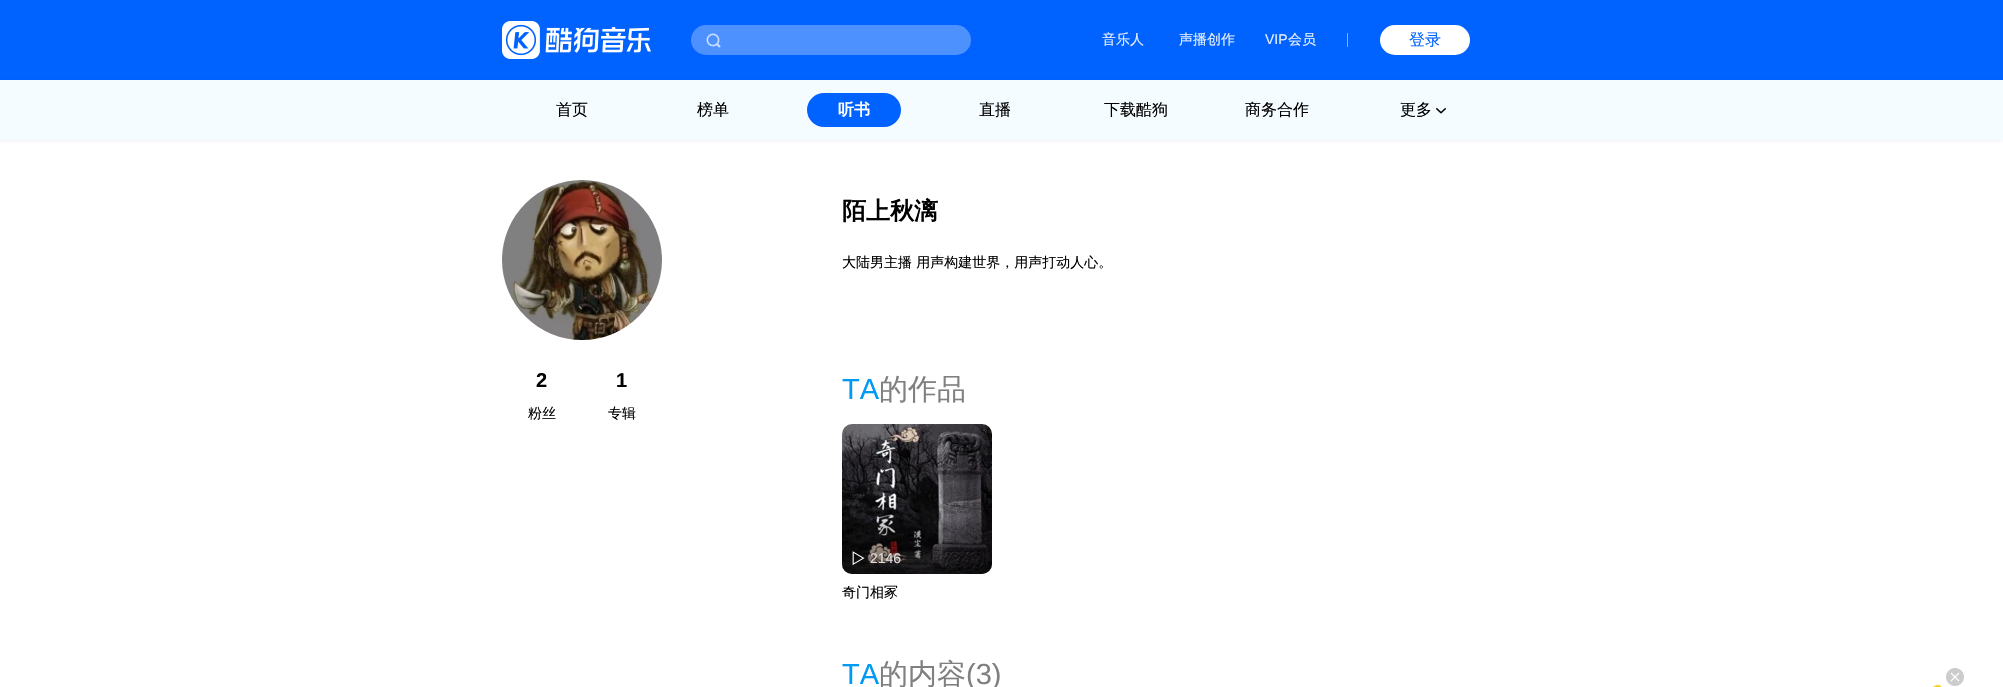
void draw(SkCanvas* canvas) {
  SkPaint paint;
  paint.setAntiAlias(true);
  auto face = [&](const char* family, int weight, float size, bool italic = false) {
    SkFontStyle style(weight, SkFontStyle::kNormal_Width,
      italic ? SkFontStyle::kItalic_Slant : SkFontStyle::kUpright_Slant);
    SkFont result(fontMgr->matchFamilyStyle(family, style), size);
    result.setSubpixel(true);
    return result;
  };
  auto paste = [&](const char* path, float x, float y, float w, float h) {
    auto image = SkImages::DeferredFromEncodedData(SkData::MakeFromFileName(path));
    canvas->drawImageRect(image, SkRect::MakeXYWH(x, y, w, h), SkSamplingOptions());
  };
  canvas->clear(0xffffffff);
  paint.setColor(0xff0062ff);
  canvas->drawRect(SkRect::MakeXYWH(0, 0, 2003, 80), paint);
  paste("img/1.png", 502, 21, 149, 38);
  paint.setColor(0xff4d91ff);
  canvas->drawRoundRect(SkRect::MakeXYWH(691, 25, 280, 30), 15, 15, paint);
  paste("img/2.png", 706, 33, 15, 15);
  paint.setColor(0xff80b1ff);
  canvas->drawRect(SkRect::MakeXYWH(1347, 33, 1, 14), paint);
  paint.setColor(0xffffffff);
  canvas->drawRoundRect(SkRect::MakeXYWH(1380, 25, 90, 30), 15, 15, paint);
  paint.setColor(0x0d000000);
  paint.setMaskFilter(SkMaskFilter::MakeBlur(kNormal_SkBlurStyle, 1.5f));
  canvas->drawRect(SkRect::MakeXYWH(0, 81, 2003, 60), paint);
  paint.setMaskFilter(nullptr);
  paint.setColor(0xfff5fcff);
  canvas->drawRect(SkRect::MakeXYWH(0, 80, 2003, 60), paint);
  paint.setColor(0xff0062ff);
  canvas->drawRoundRect(SkRect::MakeXYWH(807, 93, 94, 34), 17, 17, paint);
  paste("img/3.png", 1436, 108, 10, 6);
  paste("img/4.png", 502, 180, 160, 160);
  paste("img/5.png", 842, 424, 150, 150);
  {
    const SkColor colors[] = {0x00000000, 0x80000000};
    const float stops[] = {0, 1};
    const SkPoint ends[] = {{917, 499}, {917, 574}};
    paint.setShader(SkGradientShader::MakeLinear(ends, colors, stops, 2, SkTileMode::kClamp));
    paint.setAlpha(255);
  }
  canvas->drawRoundRect(SkRect::MakeXYWH(842, 499, 150, 75), 10, 10, paint);
  paste("img/6.png", 852, 551, 13, 14);
  paste("img/7.png", 1933, 684, 9, 3);
  paste("img/8.png", 1946, 668, 18, 18);
  auto f0 = face("WenQuanYi Zen Hei", 500, 14);
  paint.setShader(nullptr);
  paint.setColor(0xffe6efff);
  canvas->drawString("音乐人", 1102, 44, f0, paint);
  canvas->drawString("声播创作", 1179, 44, f0, paint);
  auto f1 = face("Liberation Sans", 400, 14);
  canvas->drawString("VIP", 1265, 44, f1, paint);
  canvas->drawString("会员", 1288, 44, f0, paint);
  auto f2 = face("WenQuanYi Zen Hei", 500, 16);
  paint.setColor(0xff0062ff);
  canvas->drawString("登录", 1409, 45, f2, paint);
  paint.setColor(0xff000000);
  canvas->drawString("首页", 556, 115, f2, paint);
  canvas->drawString("榜单", 697, 115, f2, paint);
  auto f3 = face("WenQuanYi Zen Hei", 700, 16);
  paint.setColor(0xffffffff);
  canvas->drawString("听书", 838, 115, f3, paint);
  paint.setColor(0xff000000);
  {
    const struct { const char* s; float x, y; } items[] = {
      {"直播", 979, 115},
      {"下载酷狗", 1104, 115},
      {"商务合作", 1245, 115},
      {"更多", 1400, 115},
    };
    for (auto [s, x, y] : items) {
      canvas->drawString(s, x, y, f2, paint);
    }
  }
  auto f4 = face("Liberation Sans", 700, 20);
  canvas->drawString("2", 536, 387, f4, paint);
  canvas->drawString("粉丝", 528, 418, f0, paint);
  canvas->drawString("1", 616, 387, f4, paint);
  canvas->drawString("专辑", 608, 418, f0, paint);
  auto f5 = face("WenQuanYi Zen Hei", 700, 24);
  canvas->drawString("陌上秋漓", 842, 219, f5, paint);
  canvas->drawString("大陆男主播 用声构建世界，用声打动人心。", 842, 267, f0, paint);
  auto f6 = face("Liberation Sans", 400, 29);
  paint.setColor(0xff009af3);
  canvas->drawString("TA", 842, 399, f6, paint);
  auto f7 = face("WenQuanYi Zen Hei", 500, 29);
  paint.setColor(0xff808080);
  canvas->drawString("的作品", 879, 399, f7, paint);
  paint.setColor(0xffdfdddc);
  canvas->drawString("2146", 870, 563, f1, paint);
  paint.setColor(0xff000000);
  canvas->drawString("奇门相冢", 842, 597, f0, paint);
  paint.setColor(0xff009af3);
  canvas->drawString("TA", 842, 684, f6, paint);
  paint.setColor(0xff808080);
  canvas->drawString("的内容", 879, 684, f7, paint);
  canvas->drawString("(3)", 966, 684, f6, paint);
}
